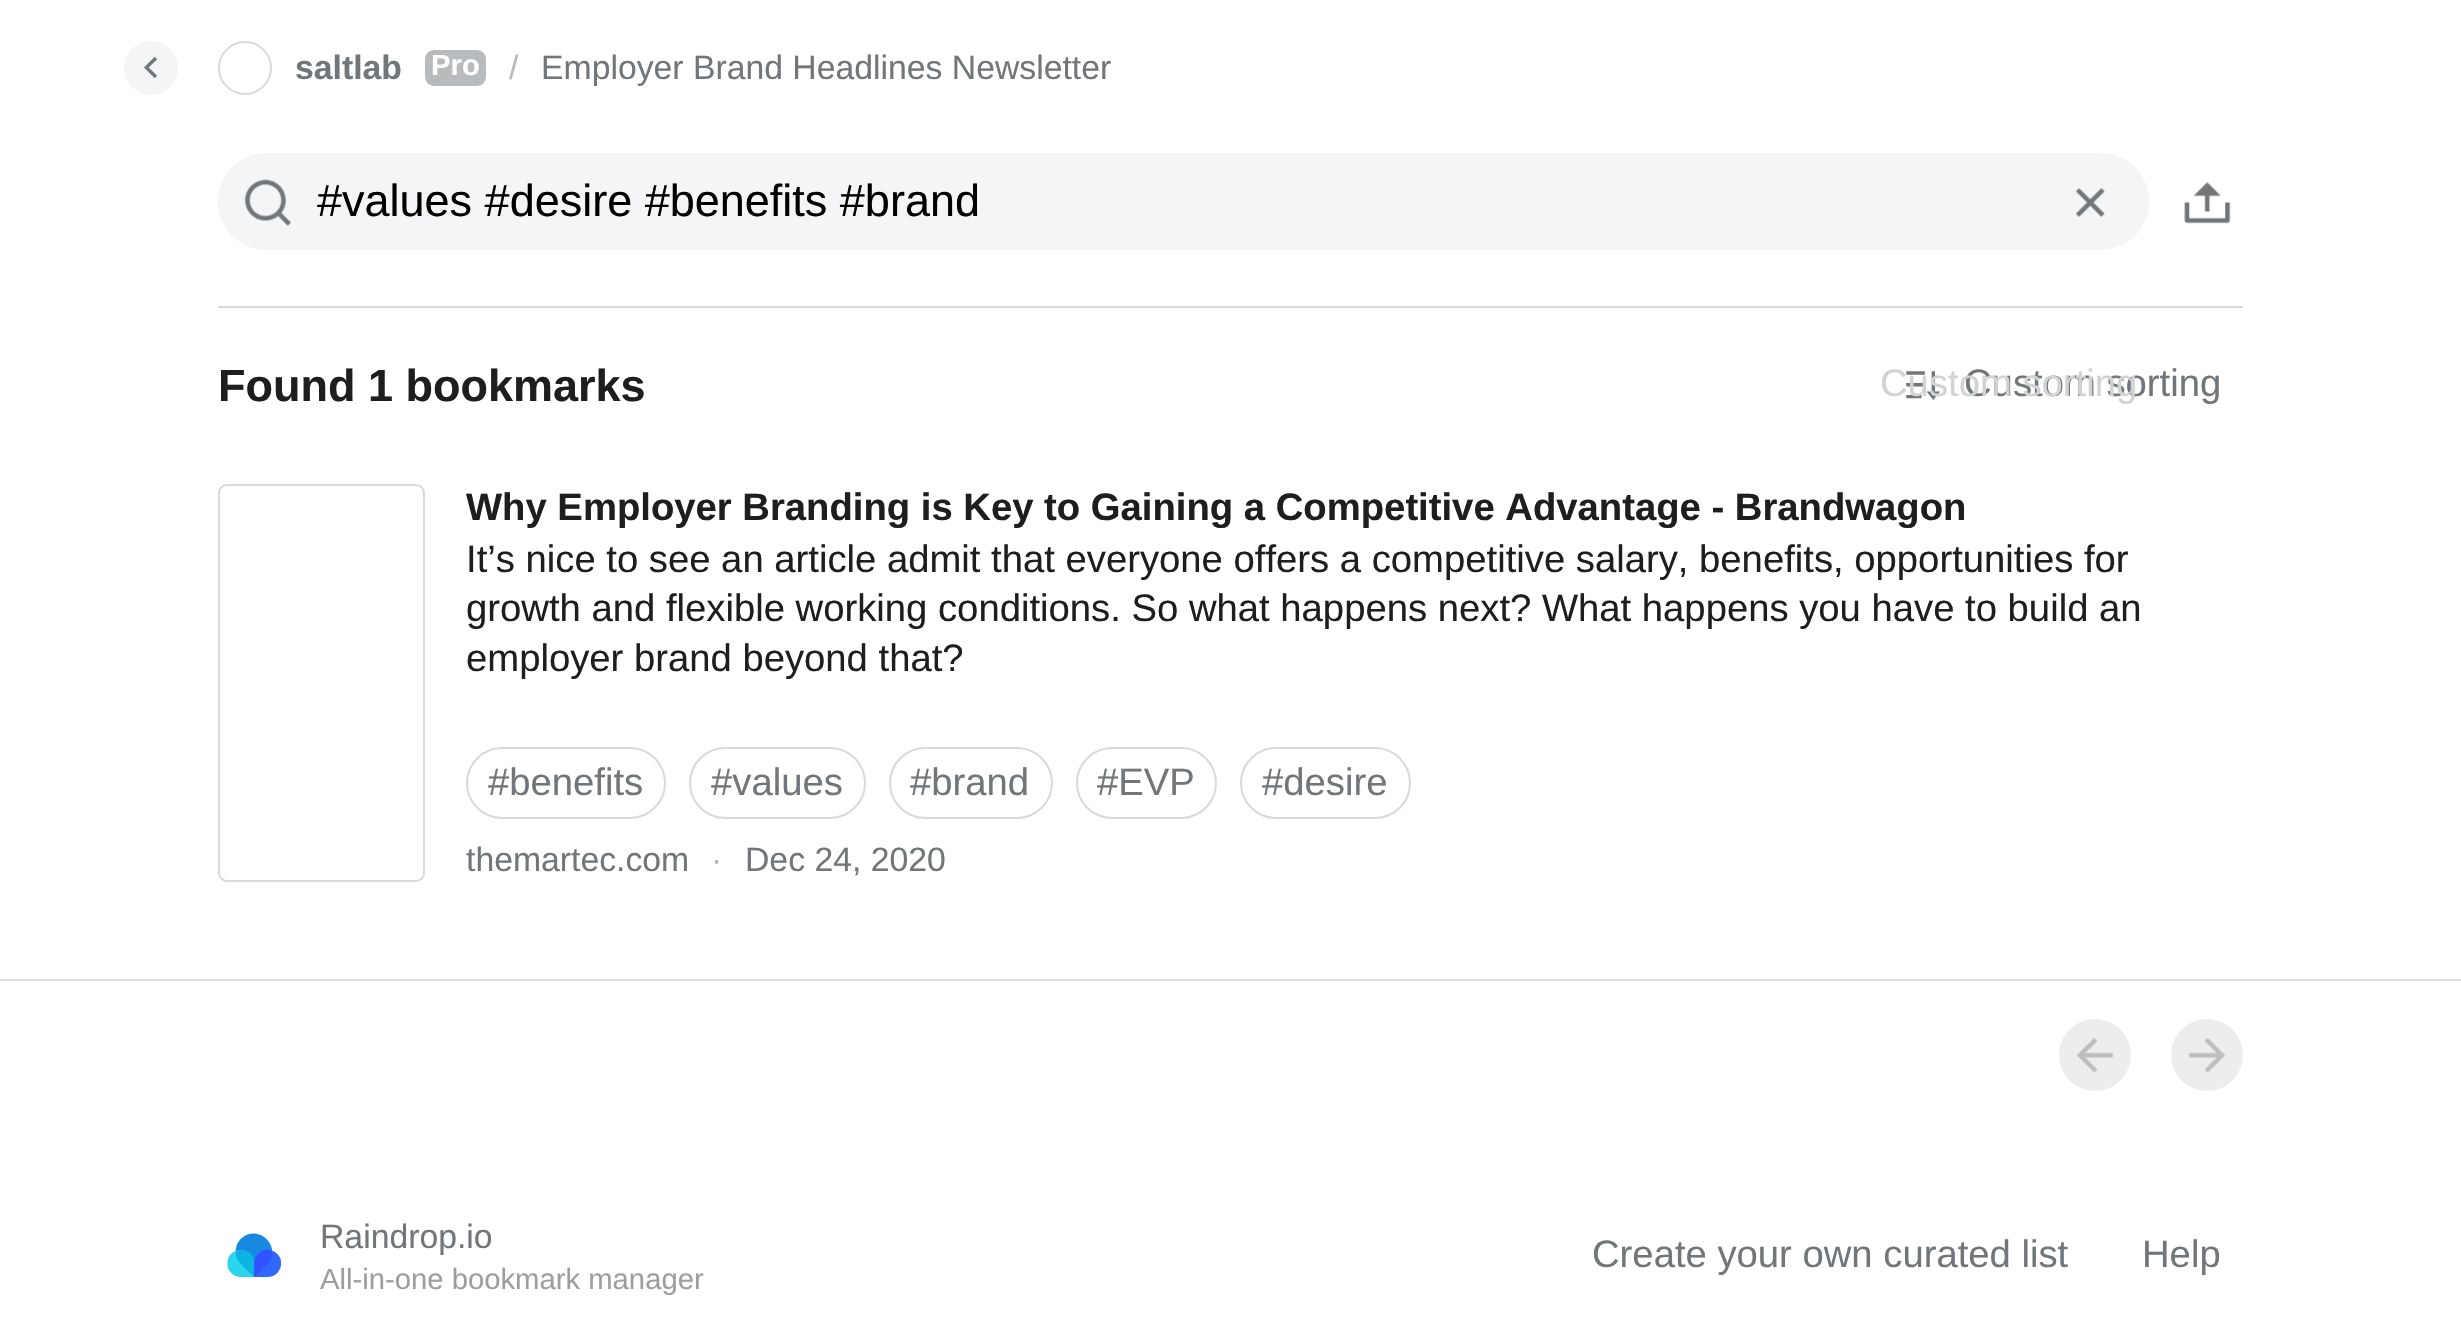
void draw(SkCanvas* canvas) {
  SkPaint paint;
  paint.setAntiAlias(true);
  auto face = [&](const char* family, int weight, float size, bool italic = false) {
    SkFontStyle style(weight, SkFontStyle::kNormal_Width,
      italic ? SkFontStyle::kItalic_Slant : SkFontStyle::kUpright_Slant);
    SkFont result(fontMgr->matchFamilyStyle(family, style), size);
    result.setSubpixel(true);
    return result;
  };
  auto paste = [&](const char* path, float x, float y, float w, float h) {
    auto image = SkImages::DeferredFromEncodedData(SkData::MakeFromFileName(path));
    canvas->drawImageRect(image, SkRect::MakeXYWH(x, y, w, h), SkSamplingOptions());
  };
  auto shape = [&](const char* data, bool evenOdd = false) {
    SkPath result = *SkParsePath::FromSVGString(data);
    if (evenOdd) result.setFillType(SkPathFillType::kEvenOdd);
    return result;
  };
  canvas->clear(0xffffffff);
  paint.setColor(0xfff3f5f6);
  canvas->drawCircle(151, 68, 27, paint);
  paste("img/1.png", 144, 56, 13, 23);
  paint.setStroke(true);
  paint.setStrokeWidth(2);
  paint.setColor(0xffd9d9d9);
  canvas->drawCircle(245, 68, 26, paint);
  paint.setStroke(false);
  paint.setColor(0xffb8bbbd);
  canvas->drawRoundRect(SkRect::MakeXYWH(425, 50, 61, 36), 9, 9, paint);
  paint.setColor(0xfff3f5f6);
  canvas->drawRoundRect(SkRect::MakeXYWH(218, 153, 1931, 97), 48.5f, 48.5f, paint);
  paste("img/2.png", 244, 179, 47, 47);
  paste("img/3.png", 2075, 188, 30, 29);
  paste("img/4.png", 2184, 182, 47, 42);
  paint.setColor(0xffd9d9d9);
  canvas->drawPath(shape("M218 306V441V308H2243V306Z"), paint);
  paste("img/5.png", 1906, 371, 34, 29);
  paint.setStroke(true);
  canvas->drawRoundRect(SkRect::MakeXYWH(219, 485, 205, 396), 8, 8, paint);
  canvas->drawRoundRect(SkRect::MakeXYWH(467, 748, 198, 70), 35, 35, paint);
  canvas->drawRoundRect(SkRect::MakeXYWH(690, 748, 175, 70), 35, 35, paint);
  canvas->drawRoundRect(SkRect::MakeXYWH(890, 748, 162, 70), 35, 35, paint);
  canvas->drawRoundRect(SkRect::MakeXYWH(1077, 748, 139, 70), 35, 35, paint);
  canvas->drawRoundRect(SkRect::MakeXYWH(1241, 748, 169, 70), 35, 35, paint);
  paint.setStroke(false);
  paint.setColor(0xffdedede);
  canvas->drawRect(SkRect::MakeXYWH(0, 979, 2461, 2), paint);
  paint.setColor(0xffededed);
  canvas->drawCircle(2095, 1055, 36, paint);
  paste("img/6.png", 2076, 1037, 37, 36);
  canvas->drawCircle(2207, 1055, 36, paint);
  paste("img/7.png", 2188, 1038, 37, 35);
  paste("img/8.png", 227, 1233, 55, 44);
  auto f0 = face("Liberation Sans", 700, 33.75f);
  paint.setColor(0xff70767a);
  canvas->drawString("saltlab", 295, 79, f0, paint);
  auto f1 = face("Liberation Sans", 700, 29.25f);
  paint.setColor(0xffffffff);
  canvas->drawString("Pro", 431, 75, f1, paint);
  auto f2 = face("Liberation Sans", 400, 33.75f);
  paint.setColor(0xffb8bbbd);
  canvas->drawString("/", 509, 79, f2, paint);
  paint.setColor(0xff70767a);
  canvas->drawString("Employer Brand Headlines Newsletter", 541, 79, f2, paint);
  auto f3 = face("Liberation Sans", 400, 45);
  paint.setColor(0xff000000);
  canvas->drawString("#values #desire #benefits #brand", 317, 216, f3, paint);
  auto f4 = face("Liberation Sans", 700, 45);
  paint.setColor(0xff1e1e1e);
  canvas->drawString("Found 1 bookmarks", 218, 401, f4, paint);
  auto f5 = face("Liberation Sans", 400, 38.25f);
  paint.setColor(0xff70767a);
  canvas->drawString("Custom sorting", 1964, 396, f5, paint);
  paint.setColor(0xffd1d3d4);
  canvas->drawString("Custom sorting", 1880, 396, f5, paint);
  auto f6 = face("Liberation Sans", 700, 38.25f);
  paint.setColor(0xff1e1e1e);
  canvas->drawString("Why Employer Branding is Key to Gaining a Competitive Advantage - Brandwagon", 466, 520, f6, paint);
  {
    const struct { const char* s; float x, y; } items[] = {
      {"It’s nice to see an article admit that everyone offers a competitive salary, benefits, opportunities for", 466, 572},
      {"growth and flexible working conditions. So what happens next? What happens you have to build an", 466, 621},
      {"employer brand beyond that?", 466, 671},
    };
    for (auto [s, x, y] : items) {
      canvas->drawString(s, x, y, f5, paint);
    }
  }
  paint.setColor(0xff70767a);
  {
    const struct { const char* s; float x, y; } items[] = {
      {"#benefits", 488, 795},
      {"#values", 711, 795},
      {"#brand", 910, 795},
      {"#EVP", 1097, 795},
      {"#desire", 1262, 795},
    };
    for (auto [s, x, y] : items) {
      canvas->drawString(s, x, y, f5, paint);
    }
  }
  canvas->drawString("themartec.com", 466, 871, f2, paint);
  paint.setColor(0xffb8bbbd);
  canvas->drawString("·", 711, 871, f2, paint);
  paint.setColor(0xff70767a);
  canvas->drawString("Dec 24, 2020", 745, 871, f2, paint);
  canvas->drawString("Raindrop.io", 320, 1248, f2, paint);
  auto f7 = face("Liberation Sans", 400, 29.25f);
  paint.setColor(0xff9b9fa2);
  canvas->drawString("All-in-one bookmark manager", 320, 1289, f7, paint);
  paint.setColor(0xff70767a);
  canvas->drawString("Create your own curated list", 1592, 1267, f5, paint);
  canvas->drawString("Help", 2142, 1267, f5, paint);
}
